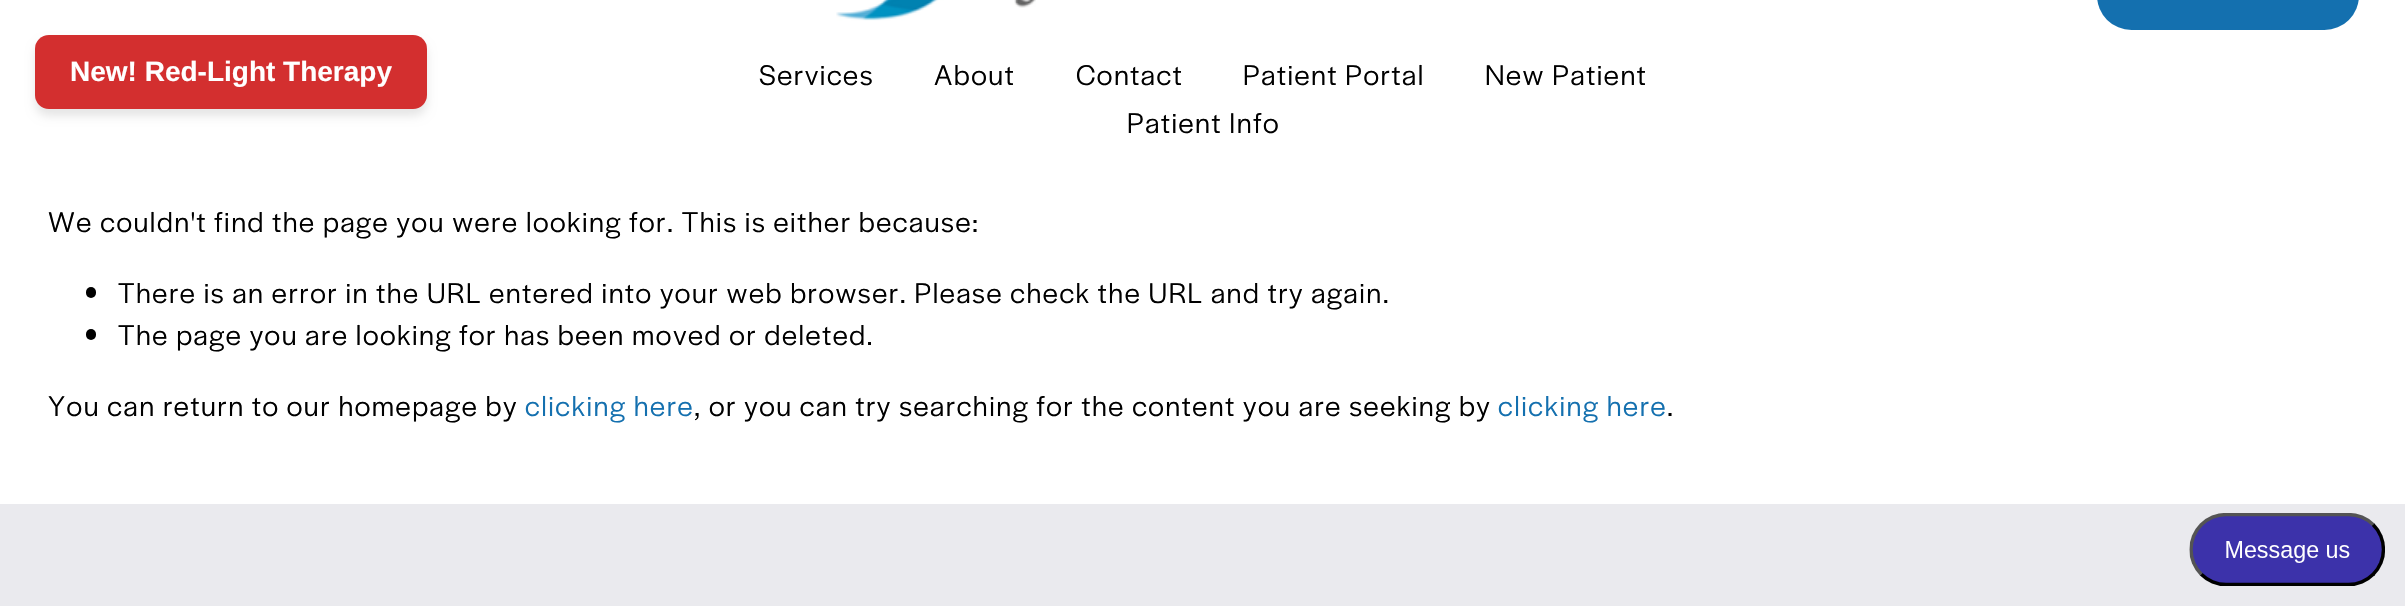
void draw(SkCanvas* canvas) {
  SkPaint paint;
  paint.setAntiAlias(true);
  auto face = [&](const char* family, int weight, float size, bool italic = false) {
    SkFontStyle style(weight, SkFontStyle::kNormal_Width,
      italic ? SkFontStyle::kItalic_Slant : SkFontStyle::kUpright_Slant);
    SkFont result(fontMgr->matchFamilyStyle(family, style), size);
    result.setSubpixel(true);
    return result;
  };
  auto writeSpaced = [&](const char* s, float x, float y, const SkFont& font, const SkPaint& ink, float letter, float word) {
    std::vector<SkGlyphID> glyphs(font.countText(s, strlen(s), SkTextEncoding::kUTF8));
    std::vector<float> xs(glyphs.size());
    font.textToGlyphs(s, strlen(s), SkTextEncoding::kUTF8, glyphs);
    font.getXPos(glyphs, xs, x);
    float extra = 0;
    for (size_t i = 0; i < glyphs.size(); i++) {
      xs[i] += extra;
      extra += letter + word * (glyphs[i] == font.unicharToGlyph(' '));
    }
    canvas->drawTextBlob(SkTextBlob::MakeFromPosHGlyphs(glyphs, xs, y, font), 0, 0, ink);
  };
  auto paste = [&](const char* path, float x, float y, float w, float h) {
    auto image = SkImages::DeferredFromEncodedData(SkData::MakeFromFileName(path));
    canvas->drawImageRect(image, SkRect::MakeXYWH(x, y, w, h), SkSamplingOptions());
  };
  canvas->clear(0xffffffff);
  paint.setColor(0x1a000000);
  paint.setMaskFilter(SkMaskFilter::MakeBlur(kNormal_SkBlurStyle, 5));
  canvas->drawRoundRect(SkRect::MakeXYWH(35, 42, 392, 74), 14, 14, paint);
  paint.setMaskFilter(nullptr);
  paint.setColor(0xffd32f2f);
  canvas->drawRoundRect(SkRect::MakeXYWH(35, 35, 392, 74), 14, 14, paint);
  paint.setColor(0xff1470af);
  canvas->drawRoundRect(SkRect::MakeXYWH(2097, -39, 262, 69), 38.5f, 38.5f, paint);
  paste("img/1.png", 836, 0, 200, 21);
  paint.setColor(0xff000000);
  canvas->drawRoundRect(SkRect::MakeXYWH(86, 287, 10, 11), 5, 5, paint);
  canvas->drawRoundRect(SkRect::MakeXYWH(86, 329, 10, 11), 5, 5, paint);
  paint.setColor(0xffeaeaee);
  canvas->drawRect(SkRect::MakeXYWH(0, 504, 2405, 102), paint);
  paste("img/2.png", 2189, 513, 196, 73);
  auto f0 = face("Liberation Sans", 700, 28);
  paint.setColor(0xffffffff);
  canvas->drawString("New! Red-Light Therapy", 70, 81, f0, paint);
  auto f1 = face("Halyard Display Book", 400, 29.75f);
  paint.setColor(0xff000000);
  {
    const struct { const char* s; float x, y; } items[] = {
      {"Services", 759, 85},
      {"About", 934, 85},
      {"Contact", 1076, 85},
      {"Patient Portal", 1243, 85},
      {"New Patient", 1485, 85},
      {"Patient Info", 1127, 133},
      {"We couldn't find the page you were looking for. This is either because:", 48, 232},
      {"There is an error in the URL entered into your web browser. Please check the URL and try again.", 118, 303},
      {"The page you are looking for has been moved or deleted.", 118, 345},
      {"You can return to our homepage by", 48, 416},
    };
    for (auto [s, x, y] : items) {
      writeSpaced(s, x, y, f1, paint, 1.5f, 0);
    }
  }
  paint.setColor(0xff1470af);
  writeSpaced("clicking here", 525, 416, f1, paint, 1.5f, 0);
  paint.setColor(0xff000000);
  writeSpaced(", or you can try searching for the content you are seeking by", 694, 416, f1, paint, 1.5f, 0);
  paint.setColor(0xff1470af);
  writeSpaced("clicking here", 1498, 416, f1, paint, 1.5f, 0);
  paint.setColor(0xff000000);
  writeSpaced(".", 1667, 416, f1, paint, 1.5f, 0);
}
